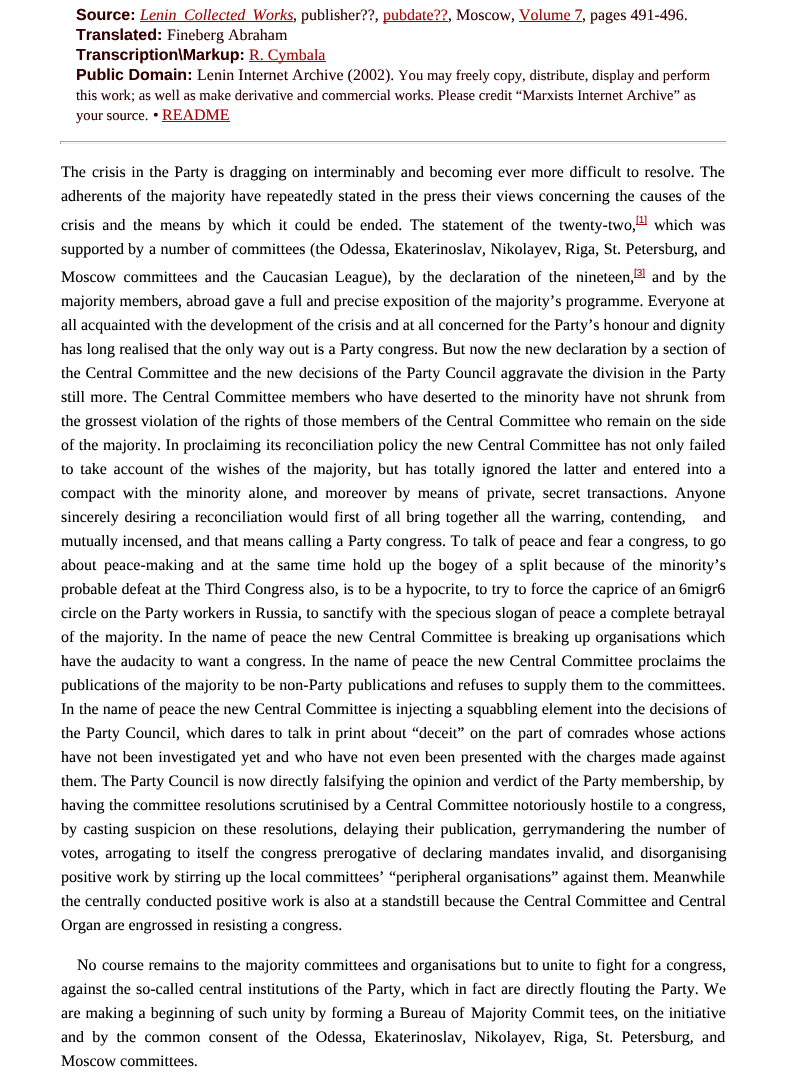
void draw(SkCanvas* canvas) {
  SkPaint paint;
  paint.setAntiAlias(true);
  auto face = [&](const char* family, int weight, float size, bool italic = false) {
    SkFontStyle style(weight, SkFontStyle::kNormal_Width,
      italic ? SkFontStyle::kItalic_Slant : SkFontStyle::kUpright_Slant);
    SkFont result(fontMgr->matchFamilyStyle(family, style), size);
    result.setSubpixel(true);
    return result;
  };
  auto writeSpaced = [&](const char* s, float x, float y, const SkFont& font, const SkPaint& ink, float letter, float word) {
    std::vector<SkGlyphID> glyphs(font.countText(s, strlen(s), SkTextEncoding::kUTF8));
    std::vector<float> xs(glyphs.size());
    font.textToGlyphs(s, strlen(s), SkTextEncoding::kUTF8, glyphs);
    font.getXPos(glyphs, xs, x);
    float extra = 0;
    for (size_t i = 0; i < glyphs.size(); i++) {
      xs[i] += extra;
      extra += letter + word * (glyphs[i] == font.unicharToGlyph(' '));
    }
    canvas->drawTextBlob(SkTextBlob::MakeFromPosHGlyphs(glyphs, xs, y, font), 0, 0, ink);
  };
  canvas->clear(0xffffffff);
  {
    const struct { float x, y, w, h; SkColor color; } items[] = {
      {140, 21, 153, 1, 0xffaa0000},
      {383, 21, 65, 1, 0xffaa0000},
      {519, 21, 63, 1, 0xffaa0000},
      {249, 61, 77, 1, 0xffaa0000},
      {162, 121, 68, 1, 0xffaa0000},
      {60, 141, 667, 1, 0xff9f9f9f},
      {726, 141, 1, 3, 0xffeeeeee},
      {60, 143, 667, 1, 0xffeeeeee},
      {60, 141, 1, 3, 0xff9f9f9f},
      {636, 224, 11, 1, 0xffaa0000},
      {634, 277, 11, 1, 0xffaa0000},
    };
    for (auto [x, y, w, h, color] : items) {
      paint.setColor(color);
      canvas->drawRect(SkRect::MakeXYWH(x, y, w, h), paint);
    }
  }
  auto f0 = face("Liberation Sans", 700, 16);
  paint.setColor(0xff330000);
  canvas->drawString("Source:", 76, 20, f0, paint);
  auto f1 = face("Liberation Serif", 400, 16, true);
  paint.setColor(0xffaa0000);
  canvas->drawString("Lenin", 140, 20, f1, paint);
  writeSpaced("Collected Works", 184, 20, f1, paint, 0, 3.25f);
  auto f2 = face("Liberation Serif", 400, 16);
  paint.setColor(0xff330000);
  canvas->drawString(", publisher?\077,", 293, 20, f2, paint);
  paint.setColor(0xffaa0000);
  canvas->drawString("pubdate?\077", 383, 20, f2, paint);
  paint.setColor(0xff330000);
  canvas->drawString(", Moscow,", 448, 20, f2, paint);
  paint.setColor(0xffaa0000);
  canvas->drawString("Volume 7", 519, 20, f2, paint);
  paint.setColor(0xff330000);
  canvas->drawString(", pages 491-496.", 582, 20, f2, paint);
  canvas->drawString("Translated:", 76, 40, f0, paint);
  canvas->drawString("Fineberg Abraham", 167, 40, f2, paint);
  canvas->drawString("Transcription\\Markup:", 76, 60, f0, paint);
  paint.setColor(0xffaa0000);
  canvas->drawString("R. Cymbala", 249, 60, f2, paint);
  paint.setColor(0xff330000);
  canvas->drawString("Public Domain:", 76, 80, f0, paint);
  canvas->drawString("Lenin Internet Archive (2002).", 197, 80, f2, paint);
  auto f3 = face("Liberation Serif", 400, 14.65f);
  {
    const struct { const char* s; float x, y; } items[] = {
      {"You may freely copy, distribute, display and perform", 398, 80},
      {"this work; as well as make derivative and commercial works. Please credit “Marxists Internet Archive” as", 76, 100},
      {"your source.", 76, 120},
    };
    for (auto [s, x, y] : items) {
      canvas->drawString(s, x, y, f3, paint);
    }
  }
  canvas->drawString("•", 153, 120, f2, paint);
  paint.setColor(0xffaa0000);
  canvas->drawString("README", 162, 120, f2, paint);
  paint.setColor(0xff000000);
  canvas->drawString("The", 61, 177, f2, paint);
  writeSpaced("crisis in the Party is dragging on interminably and becoming", 92, 177, f2, paint, 0, 1.5f);
  writeSpaced("ever more difficult to resolve. The", 498, 177, f2, paint, 0, 1.5f);
  {
    const struct { const char* s; float x, y; } items[] = {
      {"adherents of the majority", 61, 201},
      {"have repeatedly stated in the press their views concerning the", 231, 201},
      {"causes of the", 640, 201},
    };
    for (auto [s, x, y] : items) {
      writeSpaced(s, x, y, f2, paint, 0, 1.25f);
    }
  }
  writeSpaced("crisis and the means by which it could be", 61, 230, f2, paint, 0, 3.5f);
  writeSpaced("ended. The statement of the", 360, 230, f2, paint, 0, 3.5f);
  canvas->drawString("twenty-two,", 559, 230, f2, paint);
  auto f4 = face("Liberation Sans", 400, 10);
  paint.setColor(0xffaa0000);
  canvas->drawString("[1]", 636, 223, f4, paint);
  paint.setColor(0xff000000);
  writeSpaced("which was", 654, 230, f2, paint, 0, 3.5f);
  canvas->drawString("supported by", 61, 254, f2, paint);
  writeSpaced("a number of committees (the Odessa, Ekaterinoslav, Nikolayev,", 149, 254, f2, paint, 0, 0.5f);
  writeSpaced("Riga, St. Petersburg, and", 565, 254, f2, paint, 0, 0.5f);
  writeSpaced("Moscow committees and the Caucasian", 61, 282, f2, paint, 0, 3.5f);
  writeSpaced("League), by the declaration of the", 335, 282, f2, paint, 0, 3.5f);
  canvas->drawString("nineteen,", 576, 282, f2, paint);
  paint.setColor(0xffaa0000);
  canvas->drawString("[3]", 634, 276, f4, paint);
  paint.setColor(0xff000000);
  canvas->drawString("and", 652, 282, f2, paint);
  writeSpaced("by the", 683, 282, f2, paint, 0, 3.5f);
  writeSpaced("majority members, abroad gave a full and precise exposition of the majority’s programme. Everyone at", 61, 306, f2, paint, 0, 0.25f);
  canvas->drawString("all acquainted with the development of the crisis and at all concerned for the Party’s honour and dignity", 61, 330, f2, paint);
  writeSpaced("has long realised that the only way out is a Party congress. But now the new declaration by a section of", 61, 354, f2, paint, 0, 0.25f);
  writeSpaced("the Central Committee and the new", 61, 378, f2, paint, 0, 1);
  writeSpaced("decisions of the Party Council aggravate the division in the", 299, 378, f2, paint, 0, 1);
  canvas->drawString("Party", 692, 378, f2, paint);
  writeSpaced("still more. The Central Committee members who have", 61, 402, f2, paint, 0, 1.25f);
  writeSpaced("deserted to the minority have not shrunk from", 423, 402, f2, paint, 0, 1.25f);
  {
    const struct { const char* s; float x, y; } items[] = {
      {"the grossest", 61, 426},
      {"violation of the rights of those members of the Central", 141, 426},
      {"Committee who remain on the side", 499, 426},
      {"of the majority. In proclaiming", 61, 450},
      {"its reconciliation policy the new Central Committee has not only", 266, 450},
    };
    for (auto [s, x, y] : items) {
      writeSpaced(s, x, y, f2, paint, 0, 0.5f);
    }
  }
  canvas->drawString("failed", 689, 450, f2, paint);
  writeSpaced("to take account of the wishes of the majority, but has", 61, 474, f2, paint, 0, 2.75f);
  writeSpaced("totally ignored the latter and entered into a", 434, 474, f2, paint, 0, 2.75f);
  {
    const struct { const char* s; float x, y; } items[] = {
      {"compact with the", 61, 498},
      {"minority alone, and moreover by means of private, secret", 186, 498},
      {"transactions. Anyone", 587, 498},
    };
    for (auto [s, x, y] : items) {
      writeSpaced(s, x, y, f2, paint, 0, 3.5f);
    }
  }
  writeSpaced("sincerely desiring a reconciliation would", 61, 522, f2, paint, 0, 1.75f);
  writeSpaced("first of all bring together all the warring, contending,", 334, 522, f2, paint, 0, 1.75f);
  canvas->drawString("and", 703, 522, f2, paint);
  writeSpaced("mutually incensed, and that means calling a Party", 61, 546, f2, paint, 0, 0.5f);
  writeSpaced("congress. To talk of peace and fear a congress, to go", 386, 546, f2, paint, 0, 0.5f);
  canvas->drawString("about", 61, 570, f2, paint);
  writeSpaced("peace-making and at the same time hold up the bogey of a split", 104, 570, f2, paint, 0, 3.25f);
  writeSpaced("because of the minority’s", 554, 570, f2, paint, 0, 3.25f);
  writeSpaced("probable defeat at the Third Congress", 61, 594, f2, paint, 0, 0.4f);
  writeSpaced("also, is to be a hypocrite, to try to force the caprice of an", 309, 594, f2, paint, 0, 0.4f);
  canvas->drawString("6migr6", 679, 594, f2, paint);
  writeSpaced("circle on the Party workers in Russia, to sanctify with", 61, 618, f2, paint, 0, 0.25f);
  writeSpaced("the specious slogan of peace a complete betrayal", 412, 618, f2, paint, 0, 0.25f);
  {
    const struct { const char* s; float x, y; } items[] = {
      {"of the", 61, 642},
      {"majority. In the name of peace the new Central Committee is", 105, 642},
      {"breaking up organisations which", 513, 642},
    };
    for (auto [s, x, y] : items) {
      writeSpaced(s, x, y, f2, paint, 0, 1.25f);
    }
  }
  {
    const struct { const char* s; float x, y; } items[] = {
      {"have the audacity to want a", 61, 666},
      {"congress. In the name of peace the new Central Committee", 246, 666},
      {"proclaims the", 638, 666},
    };
    for (auto [s, x, y] : items) {
      writeSpaced(s, x, y, f2, paint, 0, 1);
    }
  }
  writeSpaced("publications of the majority to be non-Party", 61, 690, f2, paint, 0, 0.25f);
  writeSpaced("publications and refuses to supply them to the committees.", 348, 690, f2, paint, 0, 0.25f);
  canvas->drawString("In", 61, 714, f2, paint);
  writeSpaced("the name of peace the new Central Committee is injecting a squabbling element into the decisions of", 79, 714, f2, paint, 0, 0.2f);
  {
    const struct { const char* s; float x, y; } items[] = {
      {"the Party Council,", 61, 738},
      {"which dares to talk in print about “deceit” on the", 186, 738},
      {"part of comrades whose actions", 518, 738},
      {"have not been investigated yet", 61, 762},
      {"and who have not even been presented with the charges made", 266, 762},
    };
    for (auto [s, x, y] : items) {
      writeSpaced(s, x, y, f2, paint, 0, 1.5f);
    }
  }
  canvas->drawString("against", 680, 762, f2, paint);
  writeSpaced("them. The Party Council is now directly falsifying the opinion and verdict of the Party membership, by", 61, 786, f2, paint, 0, 0.25f);
  {
    const struct { const char* s; float x, y; } items[] = {
      {"having the", 61, 810},
      {"committee resolutions scrutinised by a Central Committee", 133, 810},
      {"notoriously hostile to a congress,", 513, 810},
    };
    for (auto [s, x, y] : items) {
      writeSpaced(s, x, y, f2, paint, 0, 0.5f);
    }
  }
  {
    const struct { const char* s; float x, y; } items[] = {
      {"by casting suspicion on these", 61, 834},
      {"resolutions, delaying their publication, gerrymandering the", 263, 834},
      {"number of", 657, 834},
    };
    for (auto [s, x, y] : items) {
      writeSpaced(s, x, y, f2, paint, 0, 2.25f);
    }
  }
  writeSpaced("votes, arrogating to itself the congress prerogative", 61, 858, f2, paint, 0, 2.5f);
  writeSpaced("of declaring mandates invalid, and disorganising", 403, 858, f2, paint, 0, 2.5f);
  {
    const struct { const char* s; float x, y; } items[] = {
      {"positive work", 61, 882},
      {"by stirring up the local committees’ “peripheral", 154, 882},
      {"organisations” against them. Meanwhile", 466, 882},
      {"the centrally", 61, 906},
      {"conducted positive work is also at a standstill because the", 146, 906},
      {"Central Committee and Central", 524, 906},
    };
    for (auto [s, x, y] : items) {
      writeSpaced(s, x, y, f2, paint, 0, 0.5f);
    }
  }
  canvas->drawString("Organ are engrossed in resisting a congress.", 61, 930, f2, paint);
  canvas->drawString("No", 77, 970, f2, paint);
  writeSpaced("course remains to the majority committees and organisations but to", 102, 970, f2, paint, 0, 0.75f);
  writeSpaced("unite to fight for a congress,", 542, 970, f2, paint, 0, 0.75f);
  writeSpaced("against the so-called central", 61, 994, f2, paint, 0, 1.1f);
  writeSpaced("institutions of the Party, which in fact are directly flouting the", 248, 994, f2, paint, 0, 1.1f);
  {
    const struct { const char* s; float x, y; } items[] = {
      {"Party. We", 661, 994},
      {"are making a beginning of such unity by forming a Bureau of", 61, 1018},
      {"Majority Commit tees, on the initiative", 471, 1018},
    };
    for (auto [s, x, y] : items) {
      writeSpaced(s, x, y, f2, paint, 0, 1);
    }
  }
  writeSpaced("and by the common consent of", 61, 1042, f2, paint, 0, 4.25f);
  writeSpaced("the Odessa, Ekaterinoslav, Nikolayev, Riga, St. Petersburg, and", 288, 1042, f2, paint, 0, 4.25f);
  canvas->drawString("Moscow committees.", 61, 1066, f2, paint);
}
